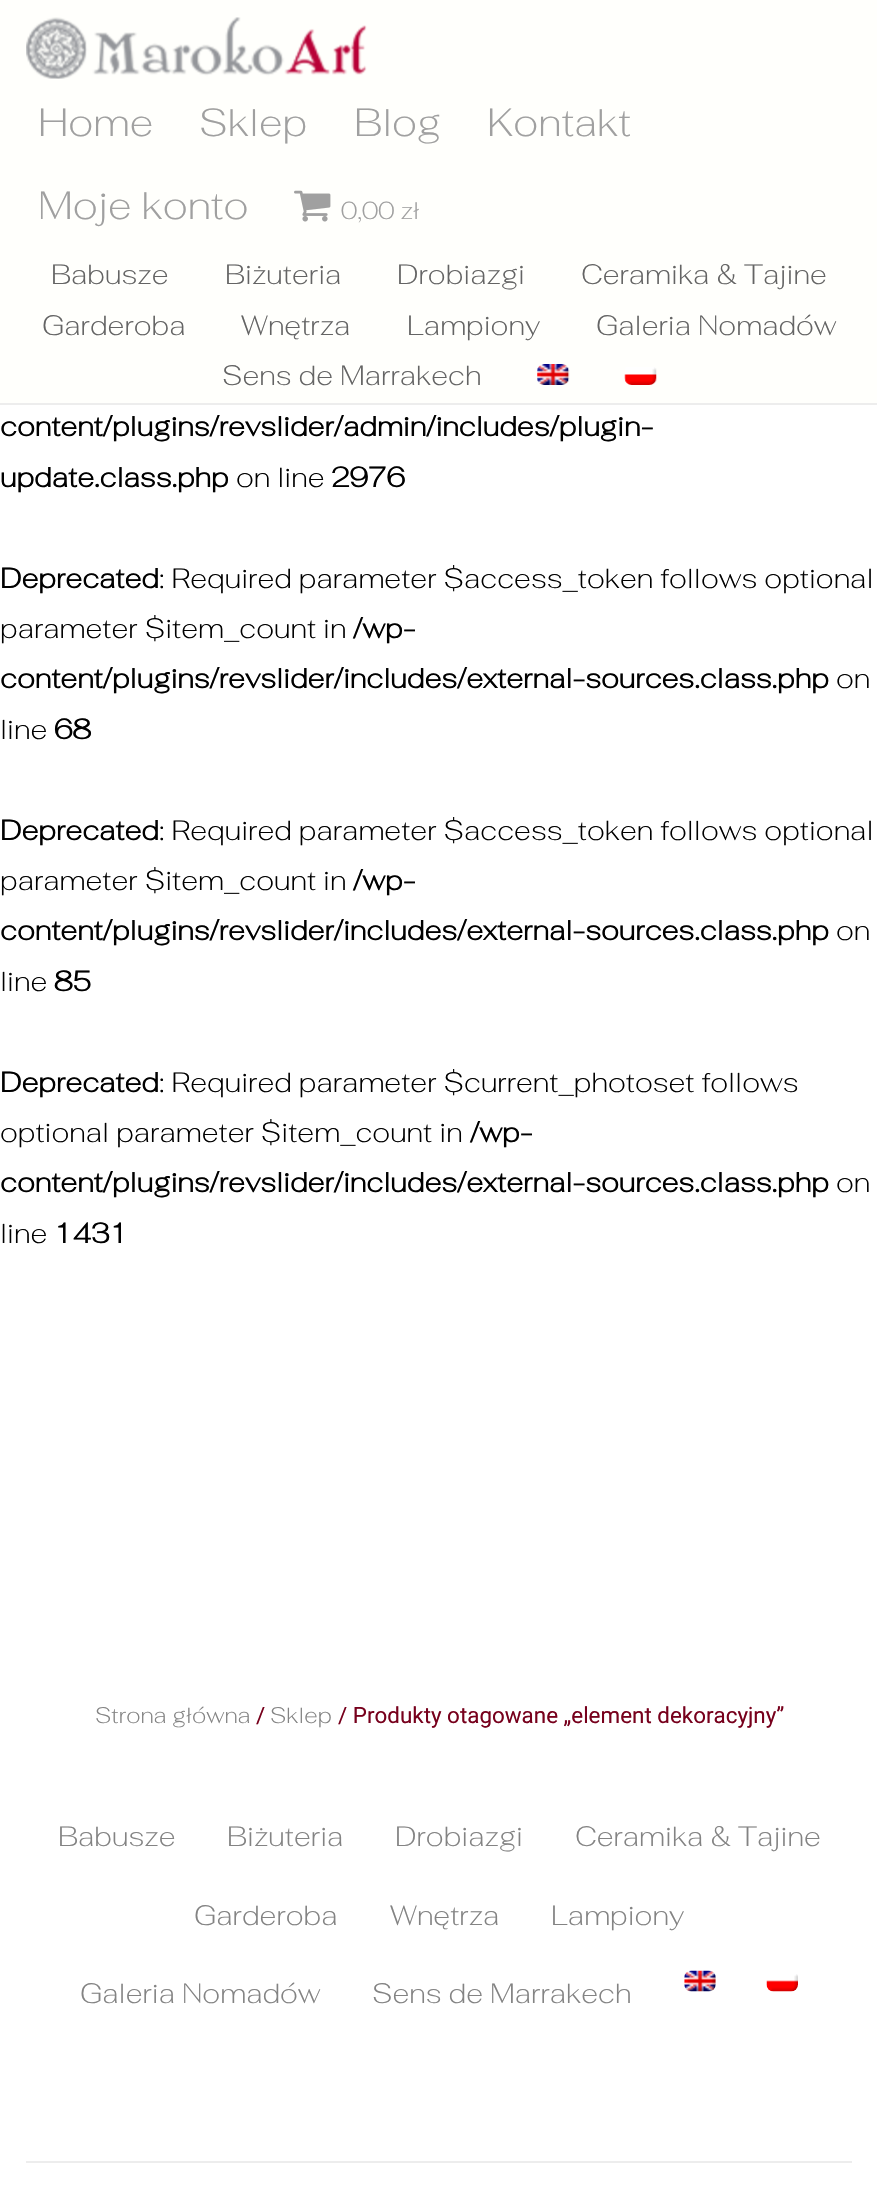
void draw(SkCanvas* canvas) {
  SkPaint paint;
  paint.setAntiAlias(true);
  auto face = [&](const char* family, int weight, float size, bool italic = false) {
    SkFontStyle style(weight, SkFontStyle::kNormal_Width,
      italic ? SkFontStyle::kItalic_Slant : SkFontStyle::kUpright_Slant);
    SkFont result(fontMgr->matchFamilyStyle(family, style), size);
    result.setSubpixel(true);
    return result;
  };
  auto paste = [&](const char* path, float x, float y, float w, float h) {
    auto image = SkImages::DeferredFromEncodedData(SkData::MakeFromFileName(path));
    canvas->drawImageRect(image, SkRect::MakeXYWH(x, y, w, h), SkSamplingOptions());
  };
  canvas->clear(0xffffffff);
  paint.setColor(0xfffffffc);
  canvas->drawRect(SkRect::MakeXYWH(0, 0, 877, 403), paint);
  paint.setColor(0xffededed);
  canvas->drawRect(SkRect::MakeXYWH(0, 403, 877, 2), paint);
  paste("img/1.png", 26, 17, 341, 62);
  paste("img/2.png", 294, 190, 37, 32);
  paste("img/3.png", 537, 364, 33, 21);
  paste("img/4.png", 624, 367, 33, 18);
  paste("img/5.png", 684, 1970, 32, 22);
  paste("img/6.png", 766, 1974, 32, 18);
  canvas->drawRect(SkRect::MakeXYWH(26, 2161, 826, 2), paint);
  auto f0 = face("Fahkwang", 200, 39.25f);
  paint.setColor(0xffa0a0a0);
  {
    const struct { const char* s; float x, y; } items[] = {
      {"Home", 38, 136},
      {"Sklep", 199, 136},
      {"Blog", 354, 136},
      {"Kontakt", 487, 136},
      {"Moje konto", 38, 219},
    };
    for (auto [s, x, y] : items) {
      canvas->drawString(s, x, y, f0, paint);
    }
  }
  auto f1 = face("Fahkwang", 200, 24.5f);
  canvas->drawString("0,00 zł", 341, 219, f1, paint);
  auto f2 = face("Fahkwang", 200, 28);
  paint.setColor(0xff646464);
  {
    const struct { const char* s; float x, y; } items[] = {
      {"Babusze", 51, 284},
      {"Biżuteria", 225, 284},
      {"Drobiazgi", 397, 284},
      {"Ceramika & Tajine", 581, 284},
      {"Garderoba", 42, 335},
      {"Wnętrza", 241, 335},
      {"Lampiony", 407, 335},
      {"Galeria Nomadów", 596, 335},
      {"Sens de Marrakech", 222, 385},
    };
    for (auto [s, x, y] : items) {
      canvas->drawString(s, x, y, f2, paint);
    }
  }
  auto f3 = face("Fahkwang", 700, 28);
  paint.setColor(0xff000000);
  canvas->drawString("content/plugins/revslider/admin/includes/plugin-", 0, 436, f3, paint);
  canvas->drawString("update.class.php", 0, 487, f3, paint);
  canvas->drawString("on line", 236, 487, f2, paint);
  canvas->drawString("2976", 331, 487, f3, paint);
  canvas->drawString("Deprecated", 0, 588, f3, paint);
  canvas->drawString(": Required parameter $access_token follows optional", 159, 588, f2, paint);
  canvas->drawString("parameter $item_count in", 0, 638, f2, paint);
  canvas->drawString("/wp-", 353, 638, f3, paint);
  canvas->drawString("content/plugins/revslider/includes/external-sources.class.php", 0, 688, f3, paint);
  canvas->drawString("on", 836, 688, f2, paint);
  canvas->drawString("line", 0, 739, f2, paint);
  canvas->drawString("68", 54, 739, f3, paint);
  canvas->drawString("Deprecated", 0, 840, f3, paint);
  canvas->drawString(": Required parameter $access_token follows optional", 159, 840, f2, paint);
  canvas->drawString("parameter $item_count in", 0, 890, f2, paint);
  canvas->drawString("/wp-", 353, 890, f3, paint);
  canvas->drawString("content/plugins/revslider/includes/external-sources.class.php", 0, 940, f3, paint);
  canvas->drawString("on", 836, 940, f2, paint);
  canvas->drawString("line", 0, 991, f2, paint);
  canvas->drawString("85", 54, 991, f3, paint);
  canvas->drawString("Deprecated", 0, 1092, f3, paint);
  canvas->drawString(": Required parameter $current_photoset follows", 159, 1092, f2, paint);
  canvas->drawString("optional parameter $item_count in", 0, 1142, f2, paint);
  canvas->drawString("/wp-", 470, 1142, f3, paint);
  canvas->drawString("content/plugins/revslider/includes/external-sources.class.php", 0, 1192, f3, paint);
  canvas->drawString("on", 836, 1192, f2, paint);
  canvas->drawString("line", 0, 1243, f2, paint);
  canvas->drawString("1431", 54, 1243, f3, paint);
  auto f4 = face("Fahkwang", 200, 22.4f);
  paint.setColor(0xff838383);
  canvas->drawString("Strona główna", 95, 1723, f4, paint);
  auto f5 = face("Roboto", 400, 22.4f);
  paint.setColor(0xff77001c);
  canvas->drawString("/", 256, 1723, f5, paint);
  paint.setColor(0xff838383);
  canvas->drawString("Sklep", 270, 1723, f4, paint);
  paint.setColor(0xff77001c);
  canvas->drawString("/ Produkty otagowane „element dekoracyjny”", 338, 1723, f5, paint);
  paint.setColor(0xff838383);
  {
    const struct { const char* s; float x, y; } items[] = {
      {"Babusze", 58, 1846},
      {"Biżuteria", 227, 1846},
      {"Drobiazgi", 395, 1846},
      {"Ceramika & Tajine", 575, 1846},
      {"Garderoba", 194, 1925},
      {"Wnętrza", 390, 1925},
      {"Lampiony", 551, 1925},
      {"Galeria Nomadów", 80, 2003},
      {"Sens de Marrakech", 372, 2003},
    };
    for (auto [s, x, y] : items) {
      canvas->drawString(s, x, y, f2, paint);
    }
  }
}
